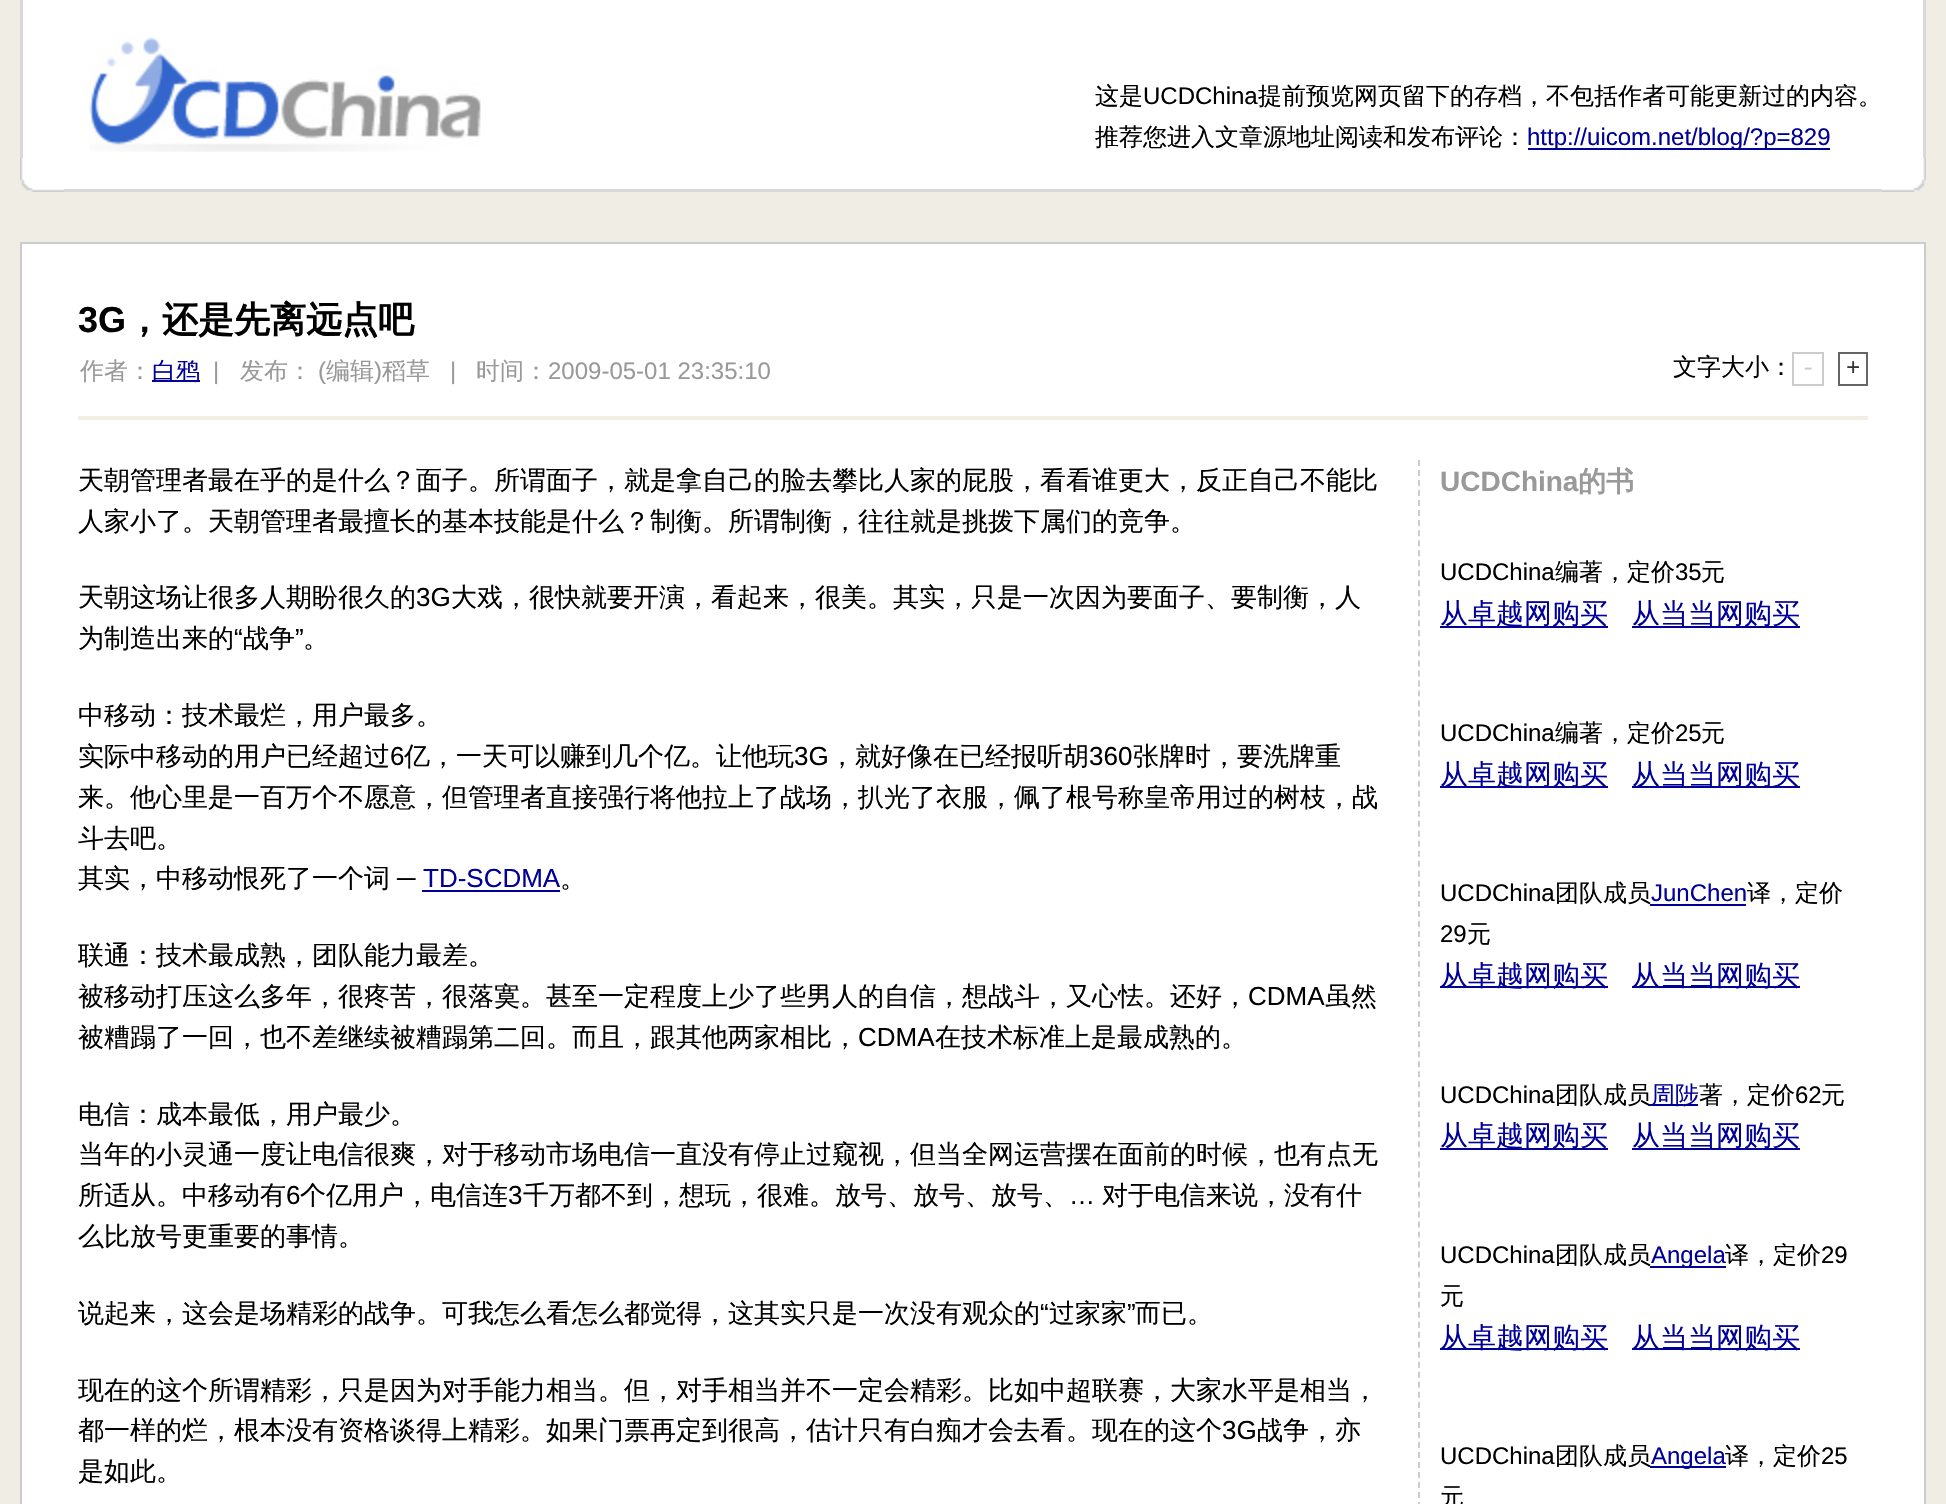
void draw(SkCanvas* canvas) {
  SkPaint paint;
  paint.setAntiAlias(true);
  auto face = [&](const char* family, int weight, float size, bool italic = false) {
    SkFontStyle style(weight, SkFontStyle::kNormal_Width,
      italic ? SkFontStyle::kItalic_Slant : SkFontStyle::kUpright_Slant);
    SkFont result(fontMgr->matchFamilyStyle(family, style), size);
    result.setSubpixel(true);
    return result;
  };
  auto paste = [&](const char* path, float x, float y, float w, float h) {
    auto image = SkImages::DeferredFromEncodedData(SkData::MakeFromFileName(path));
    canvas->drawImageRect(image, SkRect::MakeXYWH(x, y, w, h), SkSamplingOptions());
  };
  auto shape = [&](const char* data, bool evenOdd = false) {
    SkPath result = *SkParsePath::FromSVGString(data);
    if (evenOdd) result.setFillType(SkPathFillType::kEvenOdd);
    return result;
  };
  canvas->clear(0xffefede4);
  paint.setColor(0xffffffff);
  canvas->drawRect(SkRect::MakeXYWH(21, 0, 1904, 191), paint);
  paint.setColor(0xffd9d9d9);
  canvas->drawRect(SkRect::MakeXYWH(20, 0, 3, 158), paint);
  paste("img/1.png", 89, 37, 392, 115);
  paint.setColor(0xff000099);
  canvas->drawRect(SkRect::MakeXYWH(1528, 148, 302, 2), paint);
  paint.setColor(0xffd9d9d9);
  canvas->drawRect(SkRect::MakeXYWH(1923, 0, 3, 158), paint);
  paste("img/2.png", 20, 158, 44, 34);
  canvas->drawRect(SkRect::MakeXYWH(64, 189, 1818, 3), paint);
  paste("img/3.png", 1882, 158, 44, 34);
  paint.setColor(0xffffffff);
  canvas->drawRect(SkRect::MakeXYWH(21, 243, 1904, 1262), paint);
  paint.setStroke(true);
  paint.setStrokeWidth(2);
  paint.setColor(0xffcccccc);
  canvas->drawRect(SkRect::MakeXYWH(21, 243, 1904, 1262), paint);
  paint.setStroke(false);
  paint.setColor(0xfff1efe2);
  canvas->drawRect(SkRect::MakeXYWH(78, 416, 1790, 4), paint);
  paint.setColor(0xff000099);
  canvas->drawRect(SkRect::MakeXYWH(152, 380, 48, 2), paint);
  paint.setStroke(true);
  paint.setColor(0xffcccccc);
  canvas->drawRect(SkRect::MakeXYWH(1793, 353, 30, 32), paint);
  paint.setColor(0xff666666);
  canvas->drawRect(SkRect::MakeXYWH(1839, 353, 28, 32), paint);
  paint.setStroke(false);
  paint.setColor(0xff000099);
  canvas->drawRect(SkRect::MakeXYWH(422, 890, 138, 2), paint);
  paint.setStroke(true);
  paint.setColor(0xffcccccc);
  paint.setPathEffect(SkDashPathEffect::Make({{6, 4.02f}}, 0));
  canvas->drawPath(shape("M1419 460V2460"), paint);
  paint.setPathEffect(nullptr);
  paint.setStroke(false);
  {
    const struct { float x, y, w, h; SkColor color; } items[] = {
      {1440, 626, 168, 2, 0xff000099},
      {1632, 626, 168, 2, 0xff000099},
      {1440, 786, 168, 2, 0xff000099},
      {1632, 786, 168, 2, 0xff000099},
      {1440, 986, 168, 2, 0xff000099},
      {1632, 986, 168, 2, 0xff000099},
      {1440, 1148, 168, 2, 0xff000099},
      {1632, 1148, 168, 2, 0xff000099},
      {1440, 1348, 168, 2, 0xff000099},
      {1632, 1348, 168, 2, 0xff000099},
    };
    for (auto [x, y, w, h, color] : items) {
      paint.setColor(color);
      canvas->drawRect(SkRect::MakeXYWH(x, y, w, h), paint);
    }
  }
  auto f0 = face("WenQuanYi Zen Hei", 500, 24);
  paint.setColor(0xff000000);
  canvas->drawString("这是", 1095, 104, f0, paint);
  auto f1 = face("Liberation Sans", 400, 24);
  canvas->drawString("UCDChina", 1143, 104, f1, paint);
  canvas->drawString("提前预览网页留下的存档，不包括作者可能更新过的内容。", 1258, 104, f0, paint);
  canvas->drawString("推荐您进入文章源地址阅读和发布评论：", 1095, 145, f0, paint);
  paint.setColor(0xff000099);
  canvas->drawString("http://uicom.net/blog/?p=829", 1527, 145, f1, paint);
  auto f2 = face("Liberation Sans", 700, 36);
  paint.setColor(0xff000000);
  canvas->drawString("3G", 78, 332, f2, paint);
  auto f3 = face("WenQuanYi Zen Hei", 700, 36);
  canvas->drawString("，还是先离远点吧", 126, 332, f3, paint);
  paint.setColor(0xff999999);
  canvas->drawString("作者：", 80, 379, f0, paint);
  paint.setColor(0xff000099);
  canvas->drawString("白鸦", 152, 379, f0, paint);
  paint.setColor(0xff999999);
  canvas->drawString("|", 213, 379, f1, paint);
  canvas->drawString("发布：", 240, 379, f0, paint);
  canvas->drawString("(", 318, 379, f1, paint);
  canvas->drawString("编辑", 326, 379, f0, paint);
  canvas->drawString(")", 374, 379, f1, paint);
  canvas->drawString("稻草", 382, 379, f0, paint);
  canvas->drawString("|", 450, 379, f1, paint);
  canvas->drawString("时间：", 476, 379, f0, paint);
  canvas->drawString("2009-05-01 23:35:10", 548, 379, f1, paint);
  paint.setColor(0xff000000);
  canvas->drawString("文字大小：", 1673, 375, f0, paint);
  auto f4 = face("Liberation Mono", 400, 24);
  paint.setColor(0xffcccccc);
  canvas->drawString("-", 1801, 375, f4, paint);
  paint.setColor(0xff333333);
  canvas->drawString("+", 1846, 375, f4, paint);
  auto f5 = face("WenQuanYi Zen Hei", 500, 26);
  paint.setColor(0xff000000);
  {
    const struct { const char* s; float x, y; } items[] = {
      {"天朝管理者最在乎的是什么？面子。所谓面子，就是拿自己的脸去攀比人家的屁股，看看谁更大，反正自己不能比", 78, 489},
      {"人家小了。天朝管理者最擅长的基本技能是什么？制衡。所谓制衡，往往就是挑拨下属们的竞争。", 78, 530},
      {"天朝这场让很多人期盼很久的", 78, 606},
    };
    for (auto [s, x, y] : items) {
      canvas->drawString(s, x, y, f5, paint);
    }
  }
  auto f6 = face("Liberation Sans", 400, 26);
  canvas->drawString("3G", 416, 606, f6, paint);
  canvas->drawString("大戏，很快就要开演，看起来，很美。其实，只是一次因为要面子、要制衡，人", 451, 606, f5, paint);
  canvas->drawString("为制造出来的", 78, 647, f5, paint);
  canvas->drawString("“", 234, 647, f6, paint);
  canvas->drawString("战争", 243, 647, f5, paint);
  canvas->drawString("”", 295, 647, f6, paint);
  {
    const struct { const char* s; float x, y; } items[] = {
      {"。", 303, 647},
      {"中移动：技术最烂，用户最多。", 78, 724},
      {"实际中移动的用户已经超过", 78, 765},
    };
    for (auto [s, x, y] : items) {
      canvas->drawString(s, x, y, f5, paint);
    }
  }
  canvas->drawString("6", 390, 765, f6, paint);
  canvas->drawString("亿，一天可以赚到几个亿。让他玩", 404, 765, f5, paint);
  canvas->drawString("3G", 794, 765, f6, paint);
  canvas->drawString("，就好像在已经报听胡", 829, 765, f5, paint);
  canvas->drawString("360", 1089, 765, f6, paint);
  {
    const struct { const char* s; float x, y; } items[] = {
      {"张牌时，要洗牌重", 1133, 765},
      {"来。他心里是一百万个不愿意，但管理者直接强行将他拉上了战场，扒光了衣服，佩了根号称皇帝用过的树枝，战", 78, 806},
      {"斗去吧。", 78, 847},
      {"其实，中移动恨死了一个词", 78, 887},
    };
    for (auto [s, x, y] : items) {
      canvas->drawString(s, x, y, f5, paint);
    }
  }
  canvas->drawString("─", 397, 887, f6, paint);
  paint.setColor(0xff000099);
  canvas->drawString("TD-SCDMA", 423, 887, f6, paint);
  paint.setColor(0xff000000);
  {
    const struct { const char* s; float x, y; } items[] = {
      {"。", 560, 887},
      {"联通：技术最成熟，团队能力最差。", 78, 964},
      {"被移动打压这么多年，很疼苦，很落寞。甚至一定程度上少了些男人的自信，想战斗，又心怯。还好，", 78, 1005},
    };
    for (auto [s, x, y] : items) {
      canvas->drawString(s, x, y, f5, paint);
    }
  }
  canvas->drawString("CDMA", 1248, 1005, f6, paint);
  canvas->drawString("虽然", 1325, 1005, f5, paint);
  canvas->drawString("被糟蹋了一回，也不差继续被糟蹋第二回。而且，跟其他两家相比，", 78, 1046, f5, paint);
  canvas->drawString("CDMA", 858, 1046, f6, paint);
  {
    const struct { const char* s; float x, y; } items[] = {
      {"在技术标准上是最成熟的。", 935, 1046},
      {"电信：成本最低，用户最少。", 78, 1123},
      {"当年的小灵通一度让电信很爽，对于移动市场电信一直没有停止过窥视，但当全网运营摆在面前的时候，也有点无", 78, 1163},
      {"所适从。中移动有", 78, 1204},
    };
    for (auto [s, x, y] : items) {
      canvas->drawString(s, x, y, f5, paint);
    }
  }
  canvas->drawString("6", 286, 1204, f6, paint);
  canvas->drawString("个亿用户，电信连", 300, 1204, f5, paint);
  canvas->drawString("3", 508, 1204, f6, paint);
  canvas->drawString("千万都不到，想玩，很难。放号、放号、放号、", 523, 1204, f5, paint);
  canvas->drawString("…", 1069, 1204, f6, paint);
  {
    const struct { const char* s; float x, y; } items[] = {
      {"对于电信来说，没有什", 1102, 1204},
      {"么比放号更重要的事情。", 78, 1245},
      {"说起来，这会是场精彩的战争。可我怎么看怎么都觉得，这其实只是一次没有观众的", 78, 1322},
    };
    for (auto [s, x, y] : items) {
      canvas->drawString(s, x, y, f5, paint);
    }
  }
  canvas->drawString("“", 1040, 1322, f6, paint);
  canvas->drawString("过家家", 1049, 1322, f5, paint);
  canvas->drawString("”", 1127, 1322, f6, paint);
  {
    const struct { const char* s; float x, y; } items[] = {
      {"而已。", 1135, 1322},
      {"现在的这个所谓精彩，只是因为对手能力相当。但，对手相当并不一定会精彩。比如中超联赛，大家水平是相当，", 78, 1399},
      {"都一样的烂，根本没有资格谈得上精彩。如果门票再定到很高，估计只有白痴才会去看。现在的这个", 78, 1439},
    };
    for (auto [s, x, y] : items) {
      canvas->drawString(s, x, y, f5, paint);
    }
  }
  canvas->drawString("3G", 1222, 1439, f6, paint);
  canvas->drawString("战争，亦", 1257, 1439, f5, paint);
  canvas->drawString("是如此。", 78, 1480, f5, paint);
  auto f7 = face("Liberation Sans", 700, 28);
  paint.setColor(0xff999999);
  canvas->drawString("UCDChina", 1440, 491, f7, paint);
  auto f8 = face("WenQuanYi Zen Hei", 700, 28);
  canvas->drawString("的书", 1578, 491, f8, paint);
  paint.setColor(0xff000000);
  canvas->drawString("UCDChina", 1440, 580, f1, paint);
  canvas->drawString("编著，定价", 1555, 580, f0, paint);
  canvas->drawString("35", 1675, 580, f1, paint);
  canvas->drawString("元", 1701, 580, f0, paint);
  auto f9 = face("WenQuanYi Zen Hei", 500, 28);
  paint.setColor(0xff000099);
  canvas->drawString("从卓越网购买", 1440, 623, f9, paint);
  canvas->drawString("从当当网购买", 1632, 623, f9, paint);
  paint.setColor(0xff000000);
  canvas->drawString("UCDChina", 1440, 741, f1, paint);
  canvas->drawString("编著，定价", 1555, 741, f0, paint);
  canvas->drawString("25", 1675, 741, f1, paint);
  canvas->drawString("元", 1701, 741, f0, paint);
  paint.setColor(0xff000099);
  canvas->drawString("从卓越网购买", 1440, 784, f9, paint);
  canvas->drawString("从当当网购买", 1632, 784, f9, paint);
  paint.setColor(0xff000000);
  canvas->drawString("UCDChina", 1440, 901, f1, paint);
  canvas->drawString("团队成员", 1555, 901, f0, paint);
  paint.setColor(0xff000099);
  canvas->drawString("JunChen", 1651, 901, f1, paint);
  canvas->drawRect(SkRect::MakeXYWH(1650, 904, 96, 2), paint);
  paint.setColor(0xff000000);
  canvas->drawString("译，定价", 1747, 901, f0, paint);
  canvas->drawString("29", 1440, 942, f1, paint);
  canvas->drawString("元", 1467, 942, f0, paint);
  paint.setColor(0xff000099);
  canvas->drawString("从卓越网购买", 1440, 985, f9, paint);
  canvas->drawString("从当当网购买", 1632, 985, f9, paint);
  paint.setColor(0xff000000);
  canvas->drawString("UCDChina", 1440, 1103, f1, paint);
  canvas->drawString("团队成员", 1555, 1103, f0, paint);
  paint.setColor(0xff000099);
  canvas->drawRect(SkRect::MakeXYWH(1650, 1104, 48, 2), paint);
  canvas->drawString("周陟", 1651, 1103, f0, paint);
  paint.setColor(0xff000000);
  canvas->drawString("著，定价", 1699, 1103, f0, paint);
  canvas->drawString("62", 1795, 1103, f1, paint);
  canvas->drawString("元", 1821, 1103, f0, paint);
  paint.setColor(0xff000099);
  canvas->drawString("从卓越网购买", 1440, 1145, f9, paint);
  canvas->drawString("从当当网购买", 1632, 1145, f9, paint);
  paint.setColor(0xff000000);
  canvas->drawString("UCDChina", 1440, 1263, f1, paint);
  canvas->drawString("团队成员", 1555, 1263, f0, paint);
  paint.setColor(0xff000099);
  canvas->drawRect(SkRect::MakeXYWH(1650, 1266, 76, 2), paint);
  canvas->drawString("Angela", 1651, 1263, f1, paint);
  paint.setColor(0xff000000);
  canvas->drawString("译，定价", 1725, 1263, f0, paint);
  canvas->drawString("29", 1821, 1263, f1, paint);
  canvas->drawString("元", 1440, 1304, f0, paint);
  paint.setColor(0xff000099);
  canvas->drawString("从卓越网购买", 1440, 1347, f9, paint);
  canvas->drawString("从当当网购买", 1632, 1347, f9, paint);
  paint.setColor(0xff000000);
  canvas->drawString("UCDChina", 1440, 1464, f1, paint);
  canvas->drawString("团队成员", 1555, 1464, f0, paint);
  paint.setColor(0xff000099);
  canvas->drawRect(SkRect::MakeXYWH(1650, 1466, 76, 2), paint);
  canvas->drawString("Angela", 1651, 1464, f1, paint);
  paint.setColor(0xff000000);
  canvas->drawString("译，定价", 1725, 1464, f0, paint);
  canvas->drawString("25", 1821, 1464, f1, paint);
  canvas->drawString("元", 1440, 1505, f0, paint);
}
